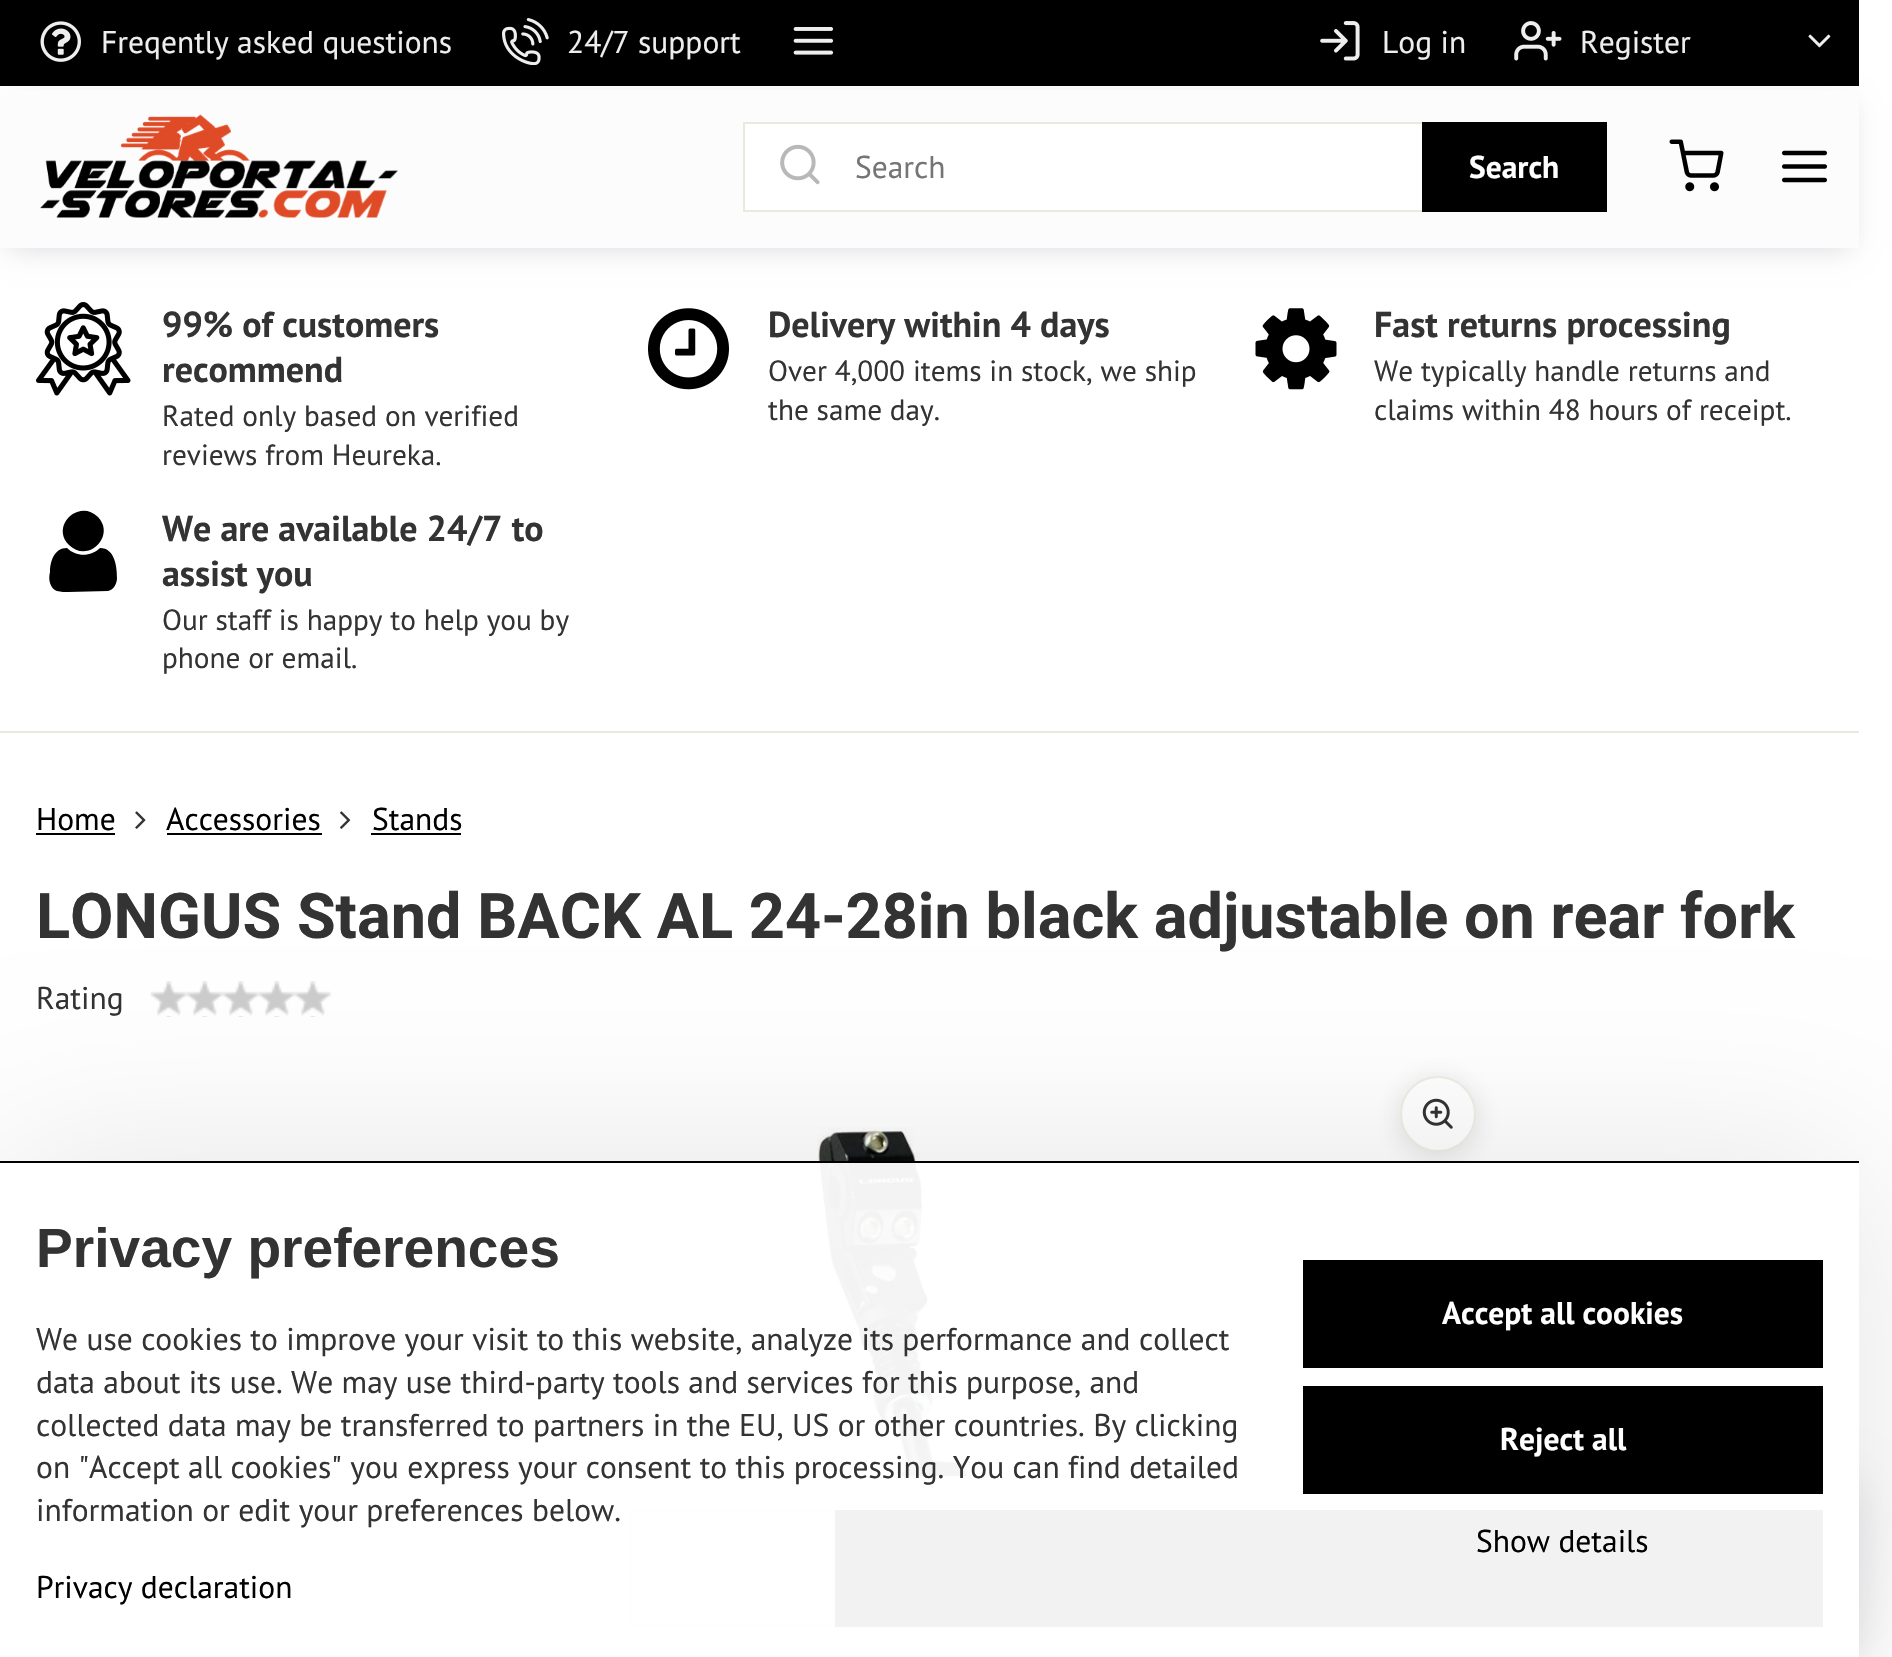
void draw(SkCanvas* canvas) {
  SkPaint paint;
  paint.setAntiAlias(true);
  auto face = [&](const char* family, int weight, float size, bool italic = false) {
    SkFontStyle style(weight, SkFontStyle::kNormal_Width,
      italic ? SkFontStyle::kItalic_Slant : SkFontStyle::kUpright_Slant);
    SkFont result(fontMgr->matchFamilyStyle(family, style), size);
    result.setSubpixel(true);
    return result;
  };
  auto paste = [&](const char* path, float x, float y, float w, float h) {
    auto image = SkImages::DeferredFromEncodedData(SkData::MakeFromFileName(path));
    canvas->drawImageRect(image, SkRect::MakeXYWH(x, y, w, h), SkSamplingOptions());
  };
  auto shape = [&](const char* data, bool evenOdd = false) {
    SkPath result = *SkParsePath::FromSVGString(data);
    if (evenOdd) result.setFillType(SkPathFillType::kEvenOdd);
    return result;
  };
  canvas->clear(0xffffffff);
  paint.setColor(0xff000000);
  canvas->drawRect(SkRect::MakeXYWH(0, 0, 1859, 86), paint);
  paste("img/1.png", 40, 21, 41, 41);
  paste("img/2.png", 502, 18, 47, 47);
  paste("img/3.png", 793, 27, 41, 28);
  paste("img/4.png", 1320, 21, 40, 40);
  paste("img/5.png", 1514, 21, 48, 40);
  paste("img/6.png", 1808, 34, 23, 14);
  paint.setColor(0x26000014);
  paint.setMaskFilter(SkMaskFilter::MakeBlur(kNormal_SkBlurStyle, 13.5f));
  canvas->drawRect(SkRect::MakeXYWH(9, 104, 1841, 144), paint);
  paint.setMaskFilter(nullptr);
  paint.setColor(0xfffcfcfc);
  canvas->drawRect(SkRect::MakeXYWH(0, 90, 1859, 158), paint);
  paste("img/7.png", 40, 114, 358, 104);
  paint.setColor(0xffffffff);
  canvas->drawRect(SkRect::MakeXYWH(745, 124, 677, 86), paint);
  paint.setStroke(true);
  paint.setStrokeWidth(2);
  paint.setColor(0xffebe8df);
  canvas->drawRect(SkRect::MakeXYWH(744, 123, 862, 88), paint);
  paste("img/8.png", 780, 144, 40, 41);
  paint.setStroke(false);
  paint.setColor(0xff000000);
  canvas->drawRect(SkRect::MakeXYWH(1422, 122, 185, 90), paint);
  paste("img/9.png", 1669, 139, 55, 53);
  paste("img/10.png", 1782, 150, 45, 33);
  paint.setColor(0xffebe8df);
  canvas->drawRect(SkRect::MakeXYWH(0, 731, 1859, 2), paint);
  paste("img/11.png", 36, 302, 95, 94);
  paste("img/12.png", 648, 308, 81, 82);
  paste("img/13.png", 1255, 308, 82, 82);
  paint.setColor(0xff000000);
  canvas->drawPath(shape("M117 578C117 583 114 590 108 591L68 592C65 592 61 592 57 591C54 590 51 587 50 583C49 580 49 576 50 572C50 562 54 548 67 548C76 557 91 557 100 548C115 548 117 567 117 578ZM98 517C116 536 88 564 69 545C50 526 79 498 98 517Z"), paint);
  canvas->drawRect(SkRect::MakeXYWH(36, 833, 79, 2), paint);
  paste("img/14.png", 135, 811, 11, 18);
  canvas->drawRect(SkRect::MakeXYWH(167, 833, 155, 2), paint);
  paste("img/15.png", 340, 811, 11, 18);
  canvas->drawRect(SkRect::MakeXYWH(371, 833, 90, 2), paint);
  paste("img/16.png", 150, 981, 181, 36);
  paste("img/17.png", 817, 1127, 172, 349);
  paint.setColor(0x26000014);
  paint.setMaskFilter(SkMaskFilter::MakeBlur(kNormal_SkBlurStyle, 23.5f));
  canvas->drawRect(SkRect::MakeXYWH(5, 1485, 1849, 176), paint);
  paint.setMaskFilter(nullptr);
  paint.setColor(0xffffffff);
  canvas->drawRect(SkRect::MakeXYWH(0, 1478, 1859, 179), paint);
  paint.setColor(0xffebe8df);
  canvas->drawRect(SkRect::MakeXYWH(0, 1476, 1859, 2), paint);
  paint.setStroke(true);
  canvas->drawRect(SkRect::MakeXYWH(631, 1511, 203, 115), paint);
  paint.setStroke(false);
  paint.setColor(0xff000000);
  canvas->drawRect(SkRect::MakeXYWH(835, 1510, 988, 117), paint);
  paint.setColor(0x26333343);
  paint.setMaskFilter(SkMaskFilter::MakeBlur(kNormal_SkBlurStyle, 13.5f));
  canvas->drawRoundRect(SkRect::MakeXYWH(1400, 1080, 76, 77), 38, 38, paint);
  paint.setMaskFilter(nullptr);
  paint.setColor(0xffffffff);
  canvas->drawCircle(1438, 1114, 37, paint);
  paint.setStroke(true);
  paint.setColor(0xffefede5);
  canvas->drawCircle(1438, 1114, 37, paint);
  paste("img/18.png", 1422, 1098, 31, 31);
  canvas->save();
  canvas->clipPath(shape("M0 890H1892V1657H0ZM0 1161H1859V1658H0Z", true), true);
  paint.setStroke(false);
  paint.setColor(0x1a000000);
  paint.setMaskFilter(SkMaskFilter::MakeBlur(kNormal_SkBlurStyle, 90));
  canvas->drawRect(SkRect::MakeXYWH(0, 1161, 1859, 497), paint);
  paint.setMaskFilter(nullptr);
  canvas->restore();
  {
    const struct { float x, y, w, h; SkColor color; } items[] = {
      {0, 1163, 1859, 494, 0xf2ffffff},
      {0, 1161, 1859, 2, 0xff000000},
      {1303, 1260, 520, 108, 0xff000000},
      {1303, 1386, 520, 108, 0xff000000},
    };
    for (auto [x, y, w, h, color] : items) {
      paint.setColor(color);
      canvas->drawRect(SkRect::MakeXYWH(x, y, w, h), paint);
    }
  }
  auto f0 = face("PT Sans", 400, 31.5f);
  paint.setColor(0xffeeeeee);
  {
    const struct { const char* s; float x, y; } items[] = {
      {"Freqently asked questions", 101, 53},
      {"24/7 support", 567, 53},
      {"Log in", 1382, 53},
      {"Register", 1580, 53},
    };
    for (auto [s, x, y] : items) {
      canvas->drawString(s, x, y, f0, paint);
    }
  }
  paint.setColor(0xff757575);
  canvas->drawString("Search", 855, 178, f0, paint);
  auto f1 = face("PT Sans", 700, 31.5f);
  paint.setColor(0xffffffff);
  canvas->drawString("Search", 1469, 178, f1, paint);
  auto f2 = face("PT Sans", 700, 36);
  paint.setColor(0xff333333);
  canvas->drawString("99% of customers", 162, 337, f2, paint);
  canvas->drawString("recommend", 162, 382, f2, paint);
  auto f3 = face("PT Sans", 400, 29.25f);
  canvas->drawString("Rated only based on verified", 162, 426, f3, paint);
  canvas->drawString("reviews from Heureka.", 162, 465, f3, paint);
  canvas->drawString("Delivery within 4 days", 768, 337, f2, paint);
  canvas->drawString("Over 4,000 items in stock, we ship", 768, 381, f3, paint);
  canvas->drawString("the same day.", 768, 420, f3, paint);
  canvas->drawString("Fast returns processing", 1374, 337, f2, paint);
  canvas->drawString("We typically handle returns and", 1374, 381, f3, paint);
  canvas->drawString("claims within 48 hours of receipt.", 1374, 420, f3, paint);
  canvas->drawString("We are available 24/7 to", 162, 541, f2, paint);
  canvas->drawString("assist you", 162, 586, f2, paint);
  canvas->drawString("Our staff is happy to help you by", 162, 630, f3, paint);
  canvas->drawString("phone or email.", 162, 668, f3, paint);
  paint.setColor(0xff000000);
  {
    const struct { const char* s; float x, y; } items[] = {
      {"Home", 36, 830},
      {"Accessories", 166, 830},
      {"Stands", 372, 830},
    };
    for (auto [s, x, y] : items) {
      canvas->drawString(s, x, y, f0, paint);
    }
  }
  auto f4 = face("Roboto", 700, 63);
  paint.setColor(0xff333333);
  canvas->drawString("LONGUS Stand BACK AL 24-28in black adjustable on rear fork", 36, 938, f4, paint);
  canvas->drawString("Rating", 36, 1009, f0, paint);
  auto f5 = face("Liberation Sans", 700, 55.1f);
  canvas->drawString("Privacy preferences", 36, 1267, f5, paint);
  {
    const struct { const char* s; float x, y; } items[] = {
      {"We use cookies to improve your visit to this website, analyze its performance and collect", 36, 1350},
      {"data about its use. We may use third-party tools and services for this purpose, and", 36, 1393},
      {"collected data may be transferred to partners in the EU, US or other countries. By clicking", 36, 1436},
      {"on \"Accept all cookies\" you express your consent to this processing. You can find detailed", 36, 1478},
      {"information or edit your preferences below.", 36, 1521},
    };
    for (auto [s, x, y] : items) {
      canvas->drawString(s, x, y, f0, paint);
    }
  }
  paint.setColor(0xff000000);
  canvas->drawString("Privacy declaration", 36, 1598, f0, paint);
  paint.setColor(0xffffffff);
  canvas->drawString("Accept all cookies", 1442, 1324, f1, paint);
  canvas->drawString("Reject all", 1500, 1450, f1, paint);
  paint.setColor(0xff000000);
  canvas->drawString("Show details", 1476, 1552, f0, paint);
}
